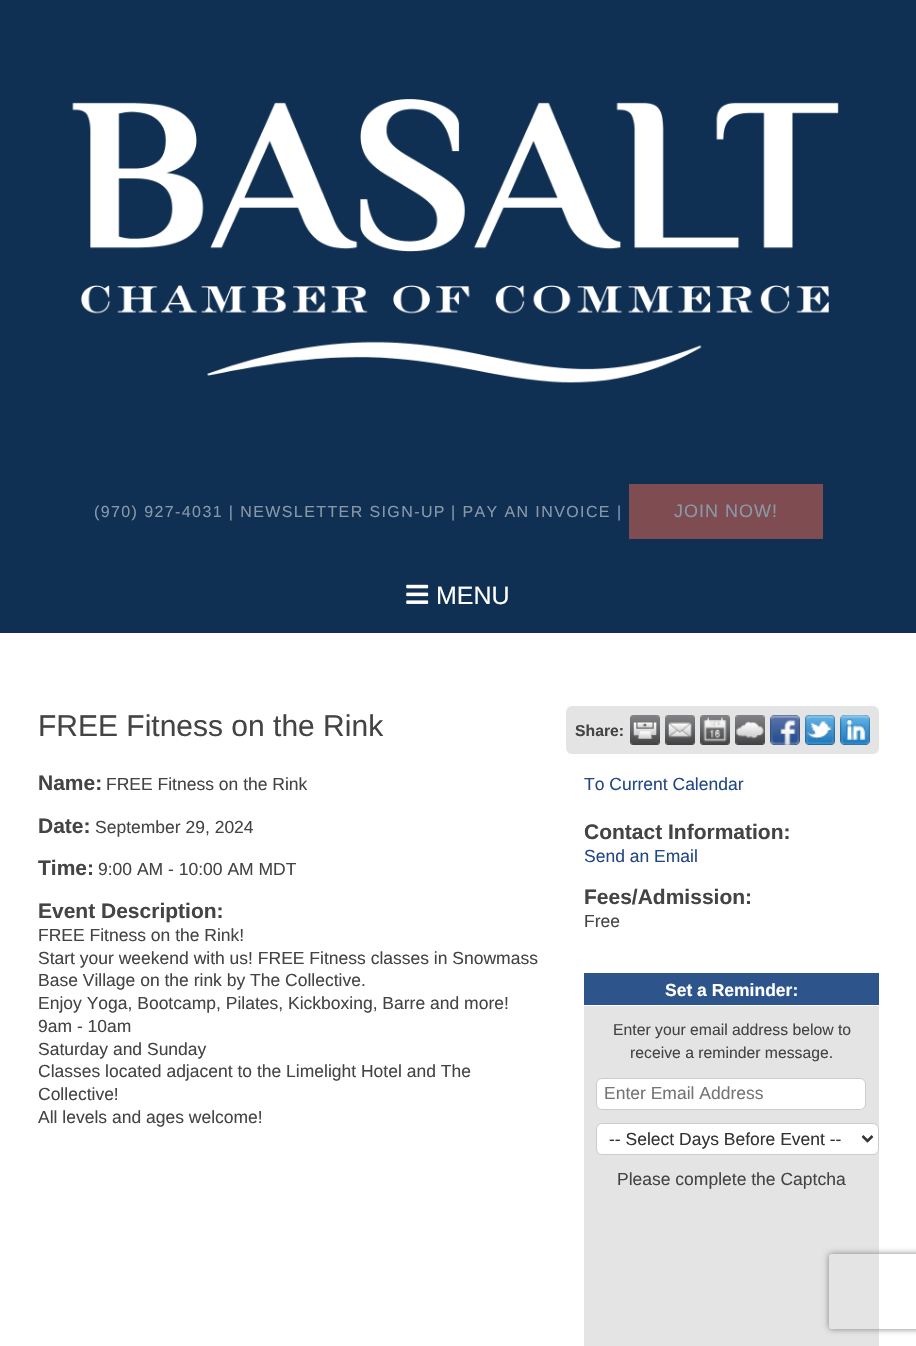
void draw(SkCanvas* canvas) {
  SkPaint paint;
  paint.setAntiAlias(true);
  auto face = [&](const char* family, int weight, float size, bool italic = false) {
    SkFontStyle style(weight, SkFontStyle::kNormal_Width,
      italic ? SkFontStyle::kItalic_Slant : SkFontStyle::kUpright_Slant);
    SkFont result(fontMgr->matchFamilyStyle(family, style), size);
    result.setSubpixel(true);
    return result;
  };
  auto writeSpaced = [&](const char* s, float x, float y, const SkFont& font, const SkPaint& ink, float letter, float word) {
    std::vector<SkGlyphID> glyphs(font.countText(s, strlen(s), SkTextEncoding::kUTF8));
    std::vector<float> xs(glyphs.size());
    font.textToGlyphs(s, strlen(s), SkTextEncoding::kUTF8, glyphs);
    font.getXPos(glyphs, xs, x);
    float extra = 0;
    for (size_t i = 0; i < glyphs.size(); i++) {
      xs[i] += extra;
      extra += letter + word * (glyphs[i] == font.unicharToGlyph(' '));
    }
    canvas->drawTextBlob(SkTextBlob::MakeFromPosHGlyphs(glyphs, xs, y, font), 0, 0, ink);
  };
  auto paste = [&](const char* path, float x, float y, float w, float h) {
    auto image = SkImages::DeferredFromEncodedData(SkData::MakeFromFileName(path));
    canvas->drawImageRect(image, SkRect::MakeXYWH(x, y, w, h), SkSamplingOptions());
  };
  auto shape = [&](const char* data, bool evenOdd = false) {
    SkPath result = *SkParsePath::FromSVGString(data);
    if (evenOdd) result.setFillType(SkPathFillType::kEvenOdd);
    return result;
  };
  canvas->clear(0xffffffff);
  paint.setColor(0xff103053);
  canvas->drawRect(SkRect::MakeXYWH(0, 0, 916, 633), paint);
  paste("img/1.png", 72, 99, 767, 284);
  paint.setColor(0xff7f4d51);
  canvas->drawRect(SkRect::MakeXYWH(629, 484, 194, 55), paint);
  paste("img/2.png", 406, 584, 23, 20);
  paint.setColor(0xffe4e4e4);
  canvas->drawRoundRect(SkRect::MakeXYWH(566, 706, 313, 48), 6, 6, paint);
  paste("img/3.png", 630, 715, 30, 30);
  paste("img/4.png", 665, 715, 30, 30);
  paste("img/5.png", 700, 715, 30, 30);
  paste("img/6.png", 735, 715, 30, 30);
  paste("img/7.png", 770, 715, 30, 30);
  paste("img/8.png", 805, 715, 30, 30);
  paste("img/9.png", 840, 715, 30, 30);
  canvas->drawRect(SkRect::MakeXYWH(584, 1006, 295, 340), paint);
  paint.setColor(0xff2d548b);
  canvas->drawRect(SkRect::MakeXYWH(584, 973, 295, 32), paint);
  paint.setColor(0xffffffff);
  canvas->drawRoundRect(SkRect::MakeXYWH(596.5f, 1078.5f, 269, 31), 5.5f, 5.5f, paint);
  paint.setStroke(true);
  paint.setStrokeWidth(1);
  paint.setColor(0xffcccccc);
  canvas->drawRoundRect(SkRect::MakeXYWH(596.5f, 1078.5f, 269, 31), 5.5f, 5.5f, paint);
  paint.setStroke(false);
  paint.setColor(0xffffffff);
  canvas->drawRoundRect(SkRect::MakeXYWH(596.5f, 1123.5f, 282, 31), 5.5f, 5.5f, paint);
  paint.setStroke(true);
  paint.setColor(0xffcccccc);
  canvas->drawRoundRect(SkRect::MakeXYWH(596.5f, 1123.5f, 282, 31), 5.5f, 5.5f, paint);
  paint.setStrokeWidth(2.5f);
  paint.setColor(0xff333333);
  canvas->drawPath(shape("M862.5 1136L867.5 1141L872.5 1136"), paint);
  canvas->save();
  canvas->clipPath(shape("M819 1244H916V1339H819ZM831.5 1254H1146.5C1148 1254 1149 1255 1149 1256.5V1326.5C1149 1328 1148 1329 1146.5 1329H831.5C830 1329 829 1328 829 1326.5V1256.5C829 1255 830 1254 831.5 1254Z", true), true);
  paint.setStroke(false);
  paint.setColor(0xff808080);
  paint.setMaskFilter(SkMaskFilter::MakeBlur(kNormal_SkBlurStyle, 3));
  canvas->drawRoundRect(SkRect::MakeXYWH(829, 1254, 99, 75), 2.5f, 2.5f, paint);
  paint.setMaskFilter(nullptr);
  canvas->restore();
  auto f0 = face("Liberation Sans", 400, 16);
  paint.setColor(0xff8898a9);
  {
    const struct { const char* s; float x, y; } items[] = {
      {"(970) 927-4031 | NEWSLETTER SIGN-UP", 94, 517},
      {"| PAY AN INVOICE", 451, 517},
      {"|", 617, 517},
    };
    for (auto [s, x, y] : items) {
      writeSpaced(s, x, y, f0, paint, 1.4f, 0);
    }
  }
  auto f1 = face("Liberation Sans", 400, 18);
  writeSpaced("JOIN NOW!", 674, 517, f1, paint, 1, 0);
  auto f2 = face("Liberation Sans", 400, 25);
  paint.setColor(0xffffffff);
  canvas->drawString("MENU", 436, 604, f2, paint);
  auto f3 = face("Liberation Sans", 400, 30);
  paint.setColor(0xff444444);
  canvas->drawString("FREE Fitness on the Rink", 38, 736, f3, paint);
  auto f4 = face("Liberation Sans", 700, 15.75f);
  canvas->drawString("Share:", 575, 736, f4, paint);
  auto f5 = face("Liberation Sans", 700, 21);
  canvas->drawString("Name:", 38, 790, f5, paint);
  auto f6 = face("Liberation Sans", 400, 17.5f);
  canvas->drawString("FREE Fitness on the Rink", 106, 790, f6, paint);
  canvas->drawString("Date:", 38, 833, f5, paint);
  canvas->drawString("September 29, 2024", 95, 833, f6, paint);
  canvas->drawString("Time:", 38, 875, f5, paint);
  canvas->drawString("9:00 AM - 10:00 AM MDT", 98, 875, f6, paint);
  canvas->drawString("Event Description:", 38, 918, f5, paint);
  {
    const struct { const char* s; float x, y; } items[] = {
      {"FREE Fitness on the Rink!", 38, 941},
      {"Start your weekend with us! FREE Fitness classes in Snowmass", 38, 964},
      {"Base Village on the rink by The Collective.", 38, 986},
      {"Enjoy Yoga, Bootcamp, Pilates, Kickboxing, Barre and more!", 38, 1009},
      {"9am - 10am", 38, 1032},
      {"Saturday and Sunday", 38, 1055},
      {"Classes located adjacent to the Limelight Hotel and The", 38, 1077},
      {"Collective!", 38, 1100},
      {"All levels and ages welcome!", 38, 1123},
    };
    for (auto [s, x, y] : items) {
      canvas->drawString(s, x, y, f6, paint);
    }
  }
  paint.setColor(0xff224884);
  canvas->drawString("To Current Calendar", 584, 790, f6, paint);
  paint.setColor(0xff444444);
  canvas->drawString("Contact Information:", 584, 839, f5, paint);
  paint.setColor(0xff224884);
  canvas->drawString("Send an Email", 584, 862, f6, paint);
  paint.setColor(0xff444444);
  canvas->drawString("Fees/Admission:", 584, 904, f5, paint);
  canvas->drawString("Free", 584, 927, f6, paint);
  auto f7 = face("Liberation Sans", 700, 17.5f);
  paint.setColor(0xffffffff);
  canvas->drawString("Set a Reminder:", 665, 996, f7, paint);
  auto f8 = face("Liberation Sans", 400, 15.75f);
  paint.setColor(0xff444444);
  canvas->drawString("Enter your email address below to", 613, 1035, f8, paint);
  canvas->drawString("receive a reminder message.", 630, 1058, f8, paint);
  paint.setColor(0xff757575);
  canvas->drawString("Enter Email Address", 604, 1099, f6, paint);
  paint.setColor(0xff333333);
  canvas->drawString("-- Select Days Before Event --", 609, 1145, f6, paint);
  paint.setColor(0xff444444);
  canvas->drawString("Please complete the Captcha", 617, 1185, f6, paint);
}
